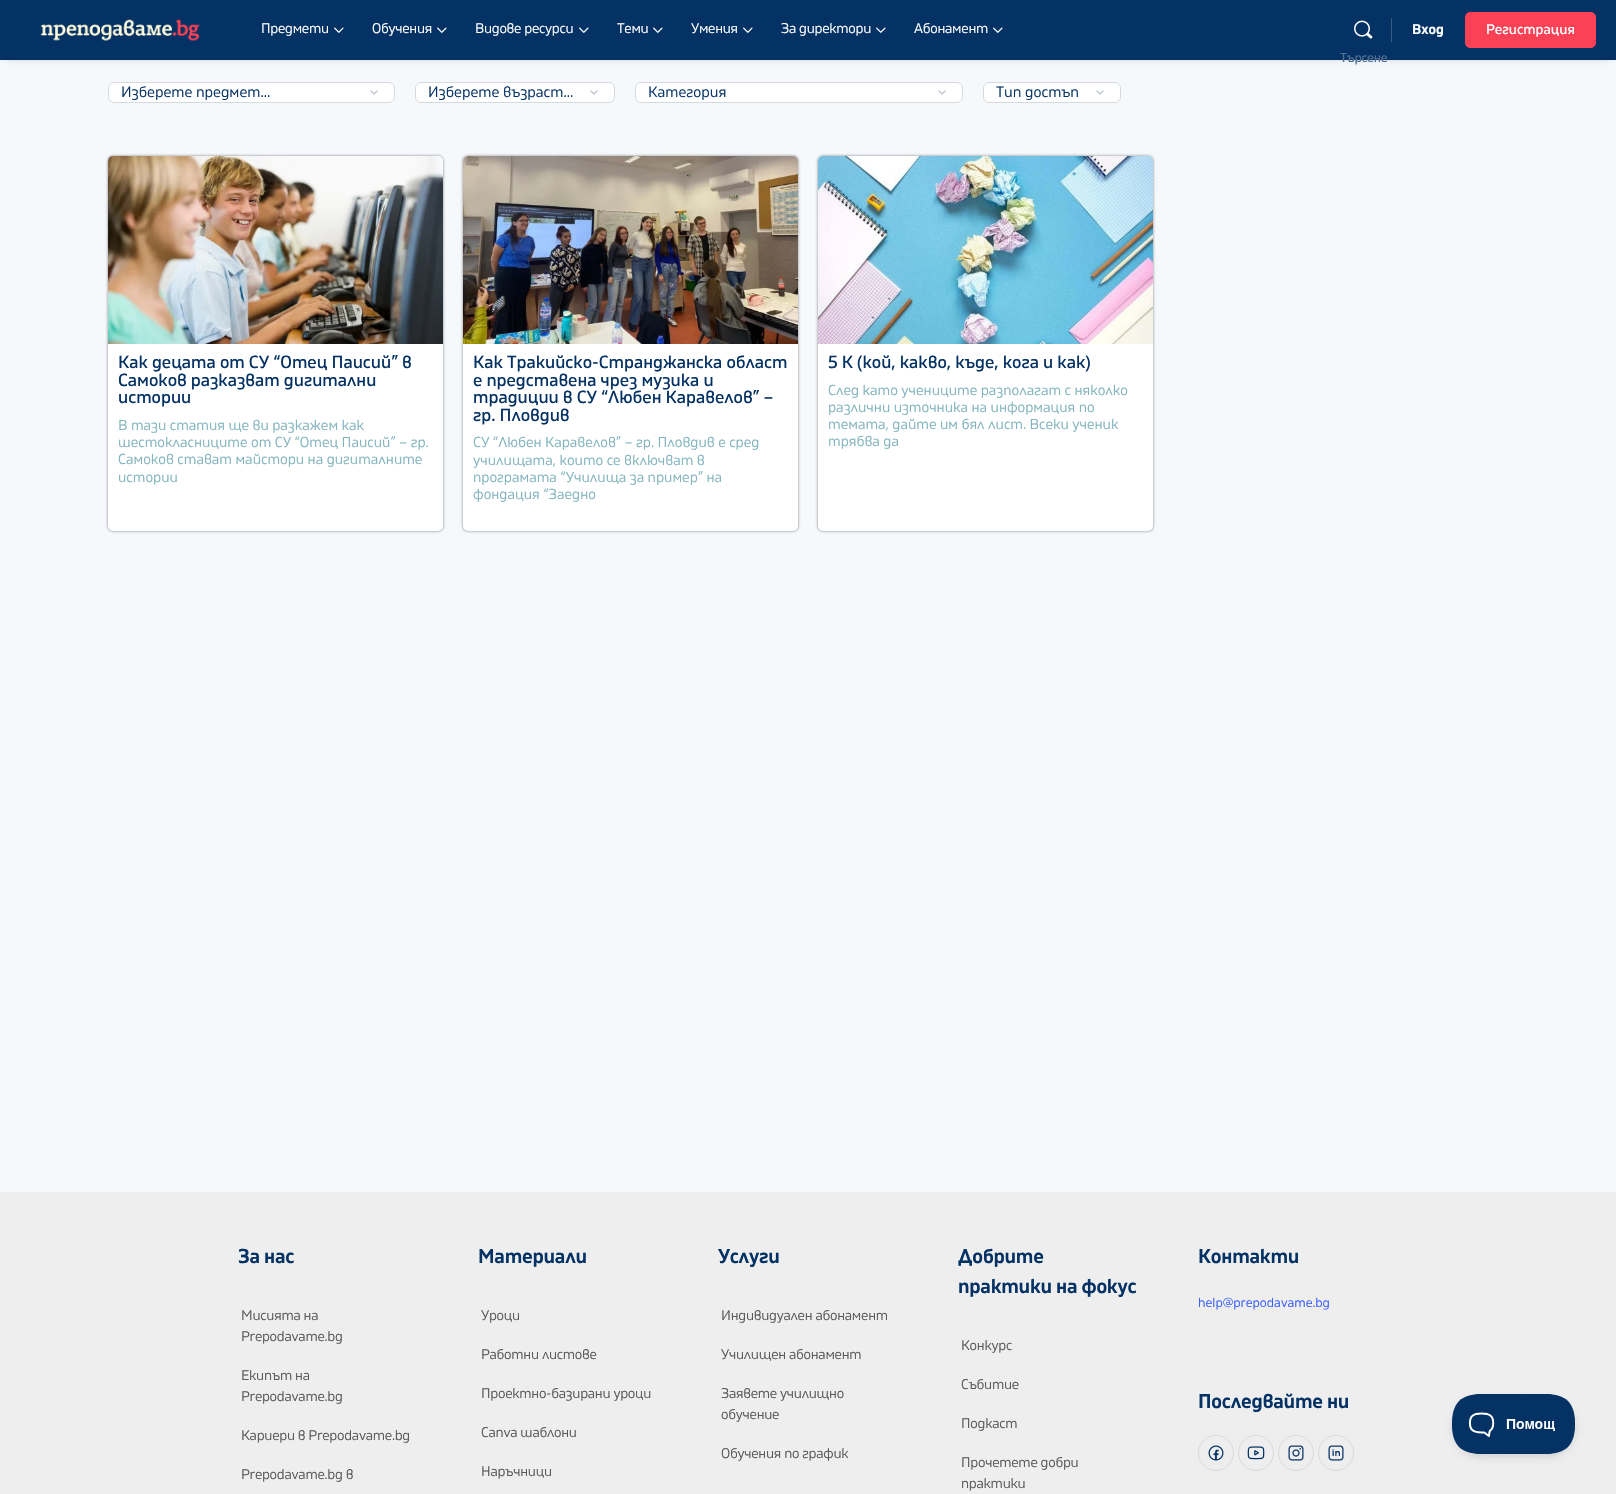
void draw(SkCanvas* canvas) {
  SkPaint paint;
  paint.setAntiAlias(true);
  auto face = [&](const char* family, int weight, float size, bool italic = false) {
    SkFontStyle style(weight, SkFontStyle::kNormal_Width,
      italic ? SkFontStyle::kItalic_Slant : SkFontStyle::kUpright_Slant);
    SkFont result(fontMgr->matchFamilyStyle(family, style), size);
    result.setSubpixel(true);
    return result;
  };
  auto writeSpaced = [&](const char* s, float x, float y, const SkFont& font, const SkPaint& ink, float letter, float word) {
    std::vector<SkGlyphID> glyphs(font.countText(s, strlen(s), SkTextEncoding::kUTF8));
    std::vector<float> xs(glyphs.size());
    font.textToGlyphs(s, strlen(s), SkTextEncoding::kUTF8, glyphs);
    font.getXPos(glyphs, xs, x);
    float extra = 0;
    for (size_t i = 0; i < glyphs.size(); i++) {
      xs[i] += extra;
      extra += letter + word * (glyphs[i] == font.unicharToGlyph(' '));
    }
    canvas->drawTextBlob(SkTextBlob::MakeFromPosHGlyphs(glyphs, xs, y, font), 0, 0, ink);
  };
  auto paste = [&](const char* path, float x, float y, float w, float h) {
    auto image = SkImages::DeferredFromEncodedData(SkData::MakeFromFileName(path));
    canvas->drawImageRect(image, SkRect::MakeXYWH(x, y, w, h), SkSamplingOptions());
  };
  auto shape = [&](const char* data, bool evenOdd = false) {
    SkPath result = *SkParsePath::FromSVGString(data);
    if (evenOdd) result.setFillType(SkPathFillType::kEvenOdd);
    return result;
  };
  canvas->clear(0xfff6f9fc);
  paint.setColor(0x4041476c);
  paint.setMaskFilter(SkMaskFilter::MakeBlur(kNormal_SkBlurStyle, 5));
  canvas->drawRect(SkRect::MakeXYWH(7, 12, 1602, 46), paint);
  paint.setMaskFilter(nullptr);
  paint.setColor(0x0d8b8d9d);
  canvas->drawRect(SkRect::MakeXYWH(0, 60, 1616, 1), paint);
  paint.setColor(0xff053264);
  canvas->drawRect(SkRect::MakeXYWH(0, 0, 1616, 60), paint);
  paste("img/1.png", 40, 19, 160, 22);
  paste("img/2.png", 334, 27, 10, 6);
  paste("img/2.png", 437, 27, 10, 6);
  paste("img/2.png", 579, 27, 10, 6);
  paste("img/2.png", 653, 27, 10, 6);
  paste("img/2.png", 743, 27, 10, 6);
  paste("img/2.png", 876, 27, 10, 6);
  paste("img/2.png", 993, 27, 10, 6);
  paint.setColor(0xff375b83);
  canvas->drawRect(SkRect::MakeXYWH(1391, 18, 1, 24), paint);
  paint.setColor(0xfffa4155);
  canvas->drawRoundRect(SkRect::MakeXYWH(1465.5f, 12.5f, 130, 35), 4.5f, 4.5f, paint);
  paint.setStroke(true);
  paint.setStrokeWidth(1);
  canvas->drawRoundRect(SkRect::MakeXYWH(1465.5f, 12.5f, 130, 35), 4.5f, 4.5f, paint);
  paste("img/3.png", 1354, 20, 19, 19);
  paint.setStroke(false);
  paint.setColor(0xffffffff);
  canvas->drawRoundRect(SkRect::MakeXYWH(108, 82, 287, 21), 6, 6, paint);
  paint.setStroke(true);
  paint.setStrokeWidth(1.5f);
  paint.setStrokeCap(SkPaint::kRound_Cap);
  paint.setStrokeJoin(SkPaint::kRound_Join);
  paint.setColor(0xffc4cad1);
  canvas->drawPath(shape("M377 91L374 94L371 91"), paint);
  paint.setStrokeWidth(1);
  paint.setStrokeCap(SkPaint::kButt_Cap);
  paint.setStrokeJoin(SkPaint::kMiter_Join);
  paint.setColor(0xffd6d9dd);
  canvas->drawRoundRect(SkRect::MakeXYWH(108.5f, 82.5f, 286, 20), 5.5f, 5.5f, paint);
  paint.setStroke(false);
  paint.setColor(0xffffffff);
  canvas->drawRoundRect(SkRect::MakeXYWH(415, 82, 200, 21), 6, 6, paint);
  paint.setStroke(true);
  paint.setStrokeWidth(1.5f);
  paint.setStrokeCap(SkPaint::kRound_Cap);
  paint.setStrokeJoin(SkPaint::kRound_Join);
  paint.setColor(0xffc4cad1);
  canvas->drawPath(shape("M597 91L594 94L591 91"), paint);
  paint.setStrokeWidth(1);
  paint.setStrokeCap(SkPaint::kButt_Cap);
  paint.setStrokeJoin(SkPaint::kMiter_Join);
  paint.setColor(0xffd6d9dd);
  canvas->drawRoundRect(SkRect::MakeXYWH(415.5f, 82.5f, 199, 20), 5.5f, 5.5f, paint);
  paint.setStroke(false);
  paint.setColor(0xffffffff);
  canvas->drawRoundRect(SkRect::MakeXYWH(635, 82, 328, 21), 6, 6, paint);
  paint.setStroke(true);
  paint.setStrokeWidth(1.5f);
  paint.setStrokeCap(SkPaint::kRound_Cap);
  paint.setStrokeJoin(SkPaint::kRound_Join);
  paint.setColor(0xffc4cad1);
  canvas->drawPath(shape("M945 91L942 94L939 91"), paint);
  paint.setStrokeWidth(1);
  paint.setStrokeCap(SkPaint::kButt_Cap);
  paint.setStrokeJoin(SkPaint::kMiter_Join);
  paint.setColor(0xffd6d9dd);
  canvas->drawRoundRect(SkRect::MakeXYWH(635.5f, 82.5f, 327, 20), 5.5f, 5.5f, paint);
  paint.setStroke(false);
  paint.setColor(0xffffffff);
  canvas->drawRoundRect(SkRect::MakeXYWH(983, 82, 138, 21), 6, 6, paint);
  paint.setStroke(true);
  paint.setStrokeWidth(1.5f);
  paint.setStrokeCap(SkPaint::kRound_Cap);
  paint.setStrokeJoin(SkPaint::kRound_Join);
  paint.setColor(0xffc4cad1);
  canvas->drawPath(shape("M1103 91L1100 94L1097 91"), paint);
  paint.setStrokeWidth(1);
  paint.setStrokeCap(SkPaint::kButt_Cap);
  paint.setStrokeJoin(SkPaint::kMiter_Join);
  paint.setColor(0xffd6d9dd);
  canvas->drawRoundRect(SkRect::MakeXYWH(983.5f, 82.5f, 137, 20), 5.5f, 5.5f, paint);
  paint.setStroke(false);
  paint.setColor(0x80000000);
  paint.setMaskFilter(SkMaskFilter::MakeBlur(kNormal_SkBlurStyle, 1.5f));
  canvas->drawRoundRect(SkRect::MakeXYWH(108, 156, 335, 375), 5, 5, paint);
  paint.setMaskFilter(nullptr);
  paint.setColor(0xffffffff);
  canvas->drawRoundRect(SkRect::MakeXYWH(108, 156, 335, 375), 5, 5, paint);
  paste("img/4.png", 108, 156, 335, 188);
  paint.setColor(0x80000000);
  paint.setMaskFilter(SkMaskFilter::MakeBlur(kNormal_SkBlurStyle, 1.5f));
  canvas->drawRoundRect(SkRect::MakeXYWH(463, 156, 335, 375), 5, 5, paint);
  paint.setMaskFilter(nullptr);
  paint.setColor(0xffffffff);
  canvas->drawRoundRect(SkRect::MakeXYWH(463, 156, 335, 375), 5, 5, paint);
  paste("img/5.png", 463, 156, 335, 188);
  paint.setColor(0x80000000);
  paint.setMaskFilter(SkMaskFilter::MakeBlur(kNormal_SkBlurStyle, 1.5f));
  canvas->drawRoundRect(SkRect::MakeXYWH(818, 156, 335, 375), 5, 5, paint);
  paint.setMaskFilter(nullptr);
  paint.setColor(0xffffffff);
  canvas->drawRoundRect(SkRect::MakeXYWH(818, 156, 335, 375), 5, 5, paint);
  paste("img/6.png", 818, 156, 335, 188);
  paint.setColor(0xffeeeeee);
  canvas->drawRect(SkRect::MakeXYWH(0, 1192, 1616, 302), paint);
  paint.setStroke(true);
  paint.setColor(0xffd6d9dd);
  canvas->drawCircle(1216, 1453, 17.5f, paint);
  paste("img/7.png", 1208, 1445, 16, 16);
  canvas->drawCircle(1256, 1453, 17.5f, paint);
  paste("img/8.png", 1247, 1446, 18, 14);
  canvas->drawCircle(1296, 1453, 17.5f, paint);
  paste("img/9.png", 1288, 1445, 16, 16);
  canvas->drawCircle(1336, 1453, 17.5f, paint);
  paste("img/10.png", 1328, 1445, 16, 16);
  paint.setStroke(false);
  paint.setColor(0x1a000000);
  paint.setMaskFilter(SkMaskFilter::MakeBlur(kNormal_SkBlurStyle, 3.5f));
  canvas->drawRoundRect(SkRect::MakeXYWH(1452, 1398, 124, 60), 30, 30, paint);
  paint.setMaskFilter(nullptr);
  paste("img/11.png", 1452, 1394, 123, 60);
  auto f0 = face("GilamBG", 400, 14);
  paint.setColor(0xffffffff);
  {
    const struct { const char* s; float x, y; } items[] = {
      {"Предмети", 261, 33},
      {"Обучения", 372, 33},
      {"Видове ресурси", 475, 33},
      {"Теми", 617, 33},
      {"Умения", 691, 33},
      {"За директори", 781, 33},
      {"Абонамент", 914, 33},
    };
    for (auto [s, x, y] : items) {
      writeSpaced(s, x, y, f0, paint, -0.25f, 0);
    }
  }
  auto f1 = face("GilamBG", 600, 14);
  canvas->drawString("Вход", 1412, 34, f1, paint);
  auto f2 = face("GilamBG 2", 400, 14);
  canvas->drawString("Регистрация", 1486, 34, f2, paint);
  auto f3 = face("GilamBG 2", 400, 13);
  paint.setColor(0xff4d6c90);
  writeSpaced("Търсене", 1340, 62, f3, paint, -0.25f, 0);
  auto f4 = face("GilamBG", 400, 15);
  paint.setColor(0xff053264);
  {
    const struct { const char* s; float x, y; } items[] = {
      {"Изберете предмет...", 121, 97},
      {"Изберете възраст...", 428, 97},
      {"Категория", 648, 97},
      {"Тип достъп", 996, 97},
    };
    for (auto [s, x, y] : items) {
      canvas->drawString(s, x, y, f4, paint);
    }
  }
  auto f5 = face("GilamBG 2", 400, 17.6f);
  {
    const struct { const char* s; float x, y; } items[] = {
      {"Как децата от СУ “Отец Паисий” в", 118, 368},
      {"Самоков разказват дигитални", 118, 386},
      {"истории", 118, 403},
    };
    for (auto [s, x, y] : items) {
      canvas->drawString(s, x, y, f5, paint);
    }
  }
  auto f6 = face("GilamBG", 400, 14.4f);
  paint.setColor(0xff82b4be);
  {
    const struct { const char* s; float x, y; } items[] = {
      {"В тази статия ще ви разкажем как", 118, 430},
      {"шестокласниците от СУ “Отец Паисий” – гр.", 118, 447},
      {"Самоков стават майстори на дигиталните", 118, 464},
      {"истории", 118, 482},
    };
    for (auto [s, x, y] : items) {
      canvas->drawString(s, x, y, f6, paint);
    }
  }
  paint.setColor(0xff053264);
  {
    const struct { const char* s; float x, y; } items[] = {
      {"Как Тракийско-Странджанска област", 473, 368},
      {"е представена чрез музика и", 473, 386},
      {"традиции в СУ “Любен Каравелов” –", 473, 403},
      {"гр. Пловдив", 473, 421},
    };
    for (auto [s, x, y] : items) {
      canvas->drawString(s, x, y, f5, paint);
    }
  }
  paint.setColor(0xff82b4be);
  {
    const struct { const char* s; float x, y; } items[] = {
      {"СУ “Любен Каравелов” – гр. Пловдив е сред", 473, 447},
      {"училищата, които се включват в", 473, 465},
      {"програмата “Училища за пример” на", 473, 482},
      {"фондация “Заедно", 473, 499},
    };
    for (auto [s, x, y] : items) {
      canvas->drawString(s, x, y, f6, paint);
    }
  }
  paint.setColor(0xff053264);
  canvas->drawString("5 К (кой, какво, къде, кога и как)", 828, 368, f5, paint);
  paint.setColor(0xff82b4be);
  {
    const struct { const char* s; float x, y; } items[] = {
      {"След като учениците разполагат с няколко", 828, 395},
      {"различни източника на информация по", 828, 412},
      {"темата, дайте им бял лист. Всеки ученик", 828, 429},
      {"трябва да", 828, 446},
    };
    for (auto [s, x, y] : items) {
      canvas->drawString(s, x, y, f6, paint);
    }
  }
  auto f7 = face("GilamBG", 600, 20);
  paint.setColor(0xff053264);
  writeSpaced("За нас", 238, 1263, f7, paint, -0.25f, 0);
  paint.setColor(0xff5a5a5a);
  {
    const struct { const char* s; float x, y; } items[] = {
      {"Мисията на", 241, 1320},
      {"Prepodavame.bg", 241, 1341},
      {"Екипът на", 241, 1380},
      {"Prepodavame.bg", 241, 1401},
      {"Кариери в Prepodavame.bg", 241, 1440},
      {"Prepodavame.bg в", 241, 1479},
    };
    for (auto [s, x, y] : items) {
      writeSpaced(s, x, y, f0, paint, -0.25f, 0);
    }
  }
  paint.setColor(0xff053264);
  writeSpaced("Материали", 478, 1263, f7, paint, -0.25f, 0);
  paint.setColor(0xff5a5a5a);
  {
    const struct { const char* s; float x, y; } items[] = {
      {"Уроци", 481, 1320},
      {"Работни листове", 481, 1359},
      {"Проектно-базирани уроци", 481, 1398},
      {"Canva шаблони", 481, 1437},
      {"Наръчници", 481, 1476},
    };
    for (auto [s, x, y] : items) {
      writeSpaced(s, x, y, f0, paint, -0.25f, 0);
    }
  }
  paint.setColor(0xff053264);
  writeSpaced("Услуги", 718, 1263, f7, paint, -0.25f, 0);
  paint.setColor(0xff5a5a5a);
  {
    const struct { const char* s; float x, y; } items[] = {
      {"Индивидуален абонамент", 721, 1320},
      {"Училищен абонамент", 721, 1359},
      {"Заявете училищно", 721, 1398},
      {"обучение", 721, 1419},
      {"Обучения по график", 721, 1458},
    };
    for (auto [s, x, y] : items) {
      writeSpaced(s, x, y, f0, paint, -0.25f, 0);
    }
  }
  paint.setColor(0xff053264);
  writeSpaced("Добрите", 958, 1263, f7, paint, -0.25f, 0);
  writeSpaced("практики на фокус", 958, 1293, f7, paint, -0.25f, 0);
  paint.setColor(0xff5a5a5a);
  {
    const struct { const char* s; float x, y; } items[] = {
      {"Конкурс", 961, 1350},
      {"Събитие", 961, 1389},
      {"Подкаст", 961, 1428},
      {"Прочетете добри", 961, 1467},
      {"практики", 961, 1488},
    };
    for (auto [s, x, y] : items) {
      writeSpaced(s, x, y, f0, paint, -0.25f, 0);
    }
  }
  paint.setColor(0xff053264);
  writeSpaced("Контакти", 1198, 1263, f7, paint, -0.25f, 0);
  auto f8 = face("GilamBG", 400, 13);
  paint.setColor(0xff385dff);
  canvas->drawString("help@prepodavame.bg", 1198, 1307, f8, paint);
  paint.setColor(0xff053264);
  writeSpaced("Последвайте ни", 1198, 1408, f7, paint, -0.25f, 0);
}
